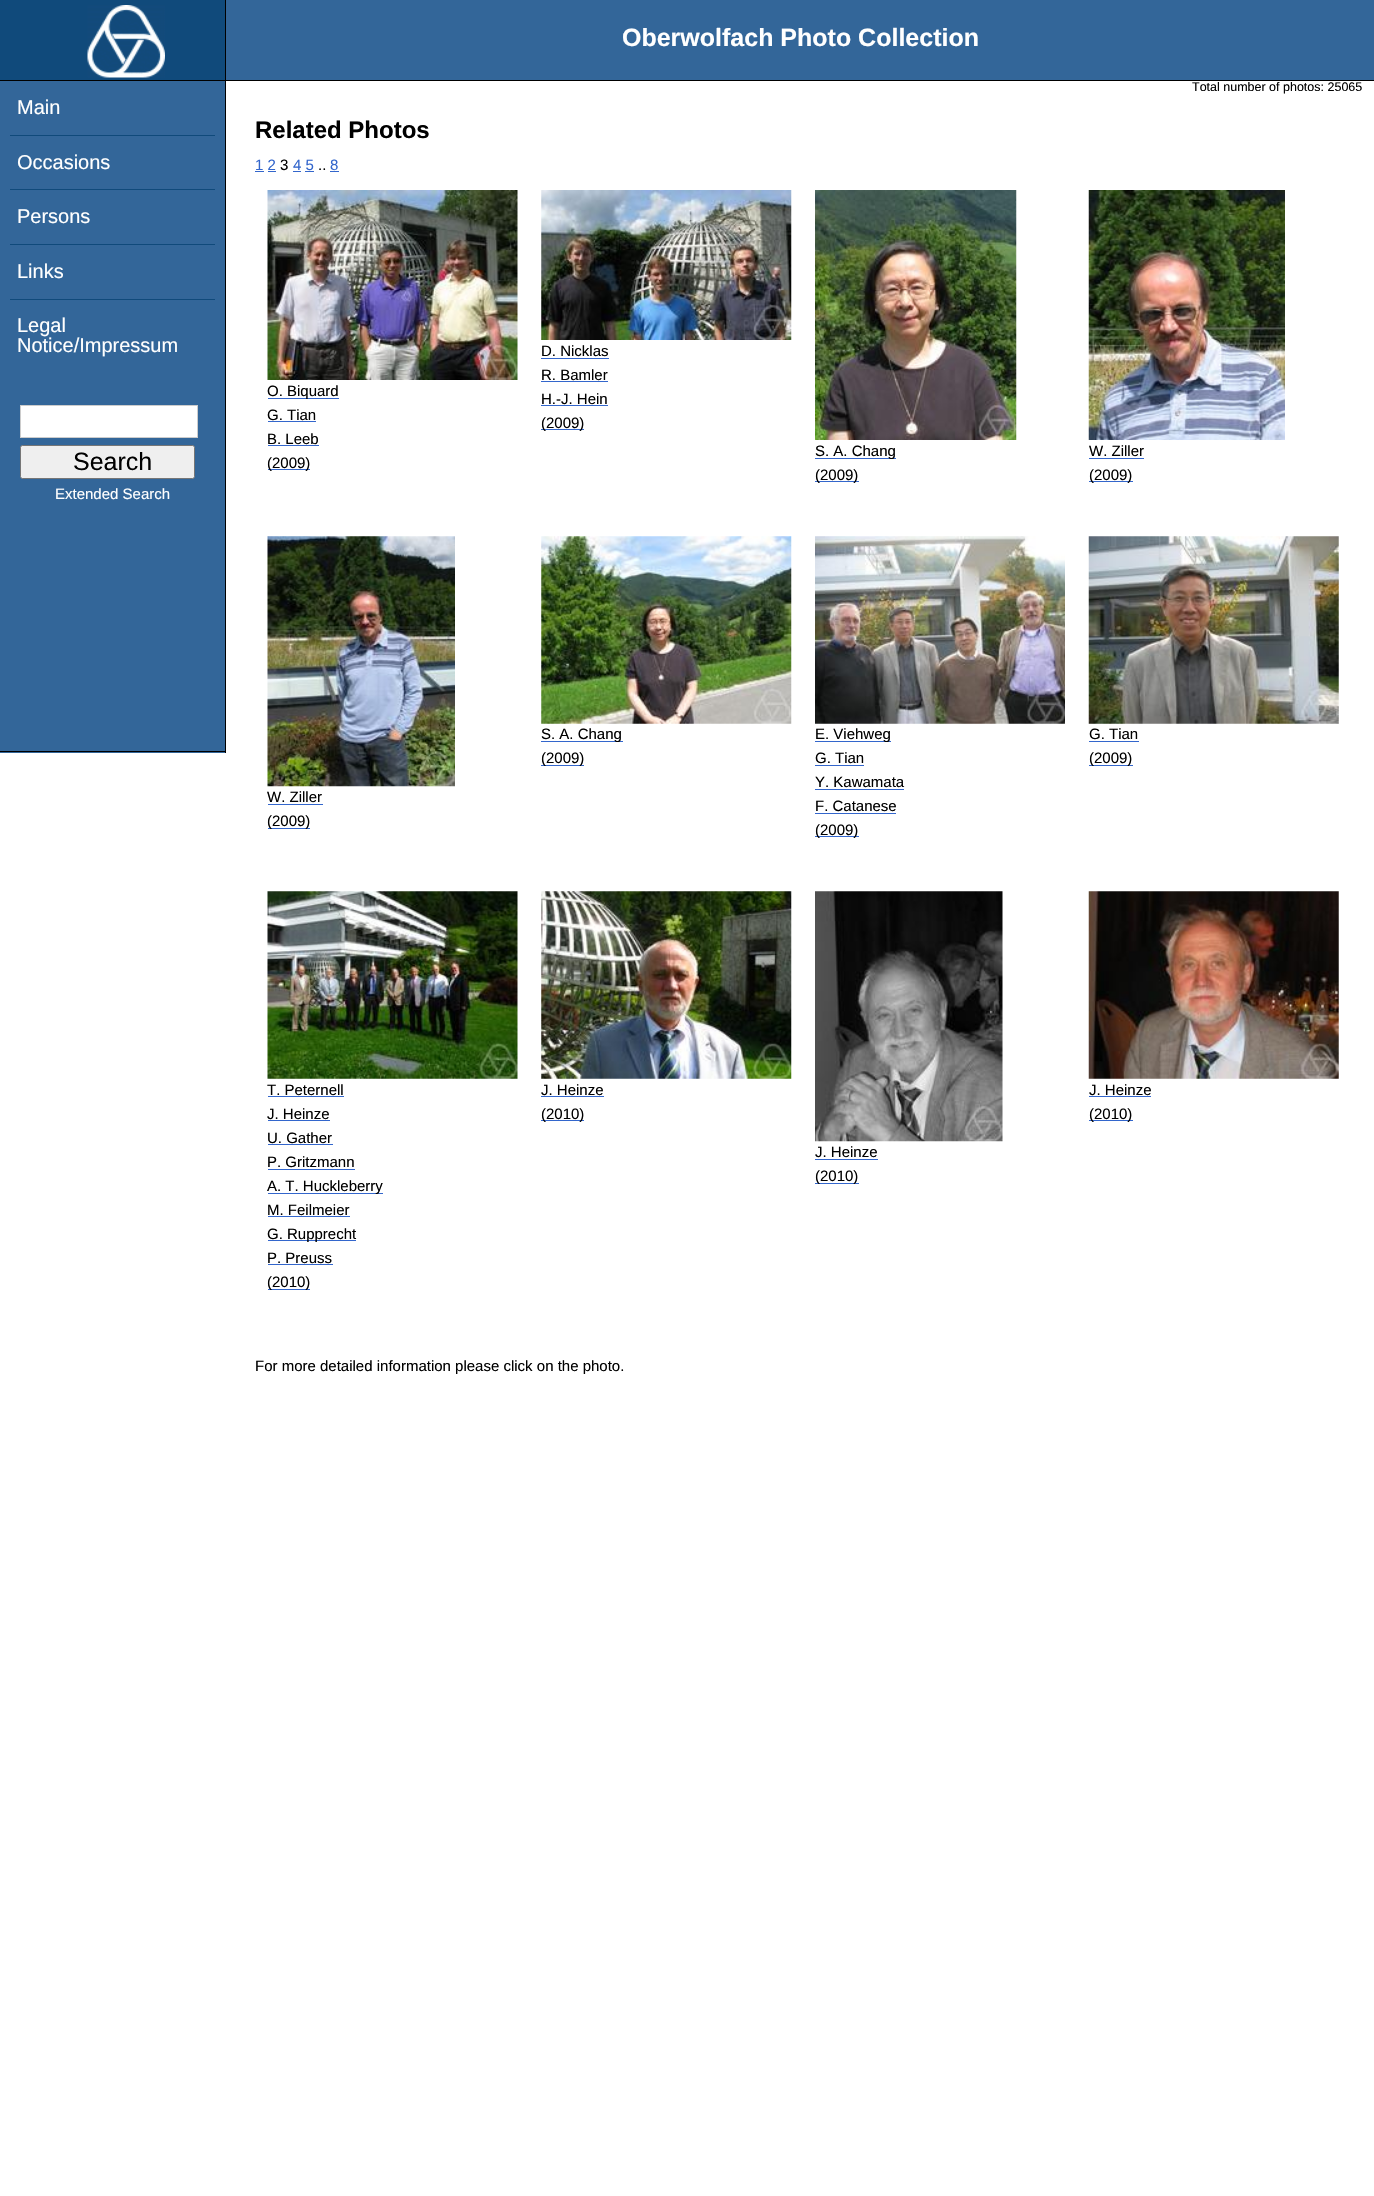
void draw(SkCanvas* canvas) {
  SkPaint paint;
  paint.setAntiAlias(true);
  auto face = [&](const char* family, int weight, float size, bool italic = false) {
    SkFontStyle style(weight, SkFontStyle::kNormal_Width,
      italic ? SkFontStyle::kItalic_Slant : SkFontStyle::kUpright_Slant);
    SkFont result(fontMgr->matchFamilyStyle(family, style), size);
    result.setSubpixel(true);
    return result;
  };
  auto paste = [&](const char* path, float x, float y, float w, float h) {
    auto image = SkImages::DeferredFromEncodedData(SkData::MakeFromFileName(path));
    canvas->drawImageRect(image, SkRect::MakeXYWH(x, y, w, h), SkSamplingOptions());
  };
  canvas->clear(0xffffffff);
  {
    const struct { float x, y, w, h; SkColor color; } items[] = {
      {226, 0, 1148, 80, 0xff336699},
      {0, 80, 1374, 1, 0xff000000},
      {0, 0, 225, 80, 0xff104a7b},
      {225, 0, 1, 80, 0xff000000},
    };
    for (auto [x, y, w, h, color] : items) {
      paint.setColor(color);
      canvas->drawRect(SkRect::MakeXYWH(x, y, w, h), paint);
    }
  }
  paste("img/1.png", 87, 5, 78, 73);
  {
    const struct { float x, y, w, h; SkColor color; } items[] = {
      {0, 81, 225, 672, 0xff336699},
      {225, 81, 1, 672, 0xff000000},
      {0, 751, 226, 1, 0xff000000},
      {10, 135, 205, 1, 0xff104a7b},
      {10, 189, 205, 1, 0xff104a7b},
      {10, 244, 205, 1, 0xff104a7b},
      {10, 299, 205, 1, 0xff104a7b},
    };
    for (auto [x, y, w, h, color] : items) {
      paint.setColor(color);
      canvas->drawRect(SkRect::MakeXYWH(x, y, w, h), paint);
    }
  }
  paint.setColor(0xffffffff);
  canvas->drawRect(SkRect::MakeXYWH(20.5f, 405.5f, 177, 32), paint);
  paint.setStroke(true);
  paint.setStrokeWidth(1);
  paint.setColor(0xffcccccc);
  canvas->drawRect(SkRect::MakeXYWH(20.5f, 405.5f, 177, 32), paint);
  paint.setStroke(false);
  paint.setColor(0xffefefef);
  canvas->drawRoundRect(SkRect::MakeXYWH(20.5f, 445.5f, 174, 33), 2, 2, paint);
  paint.setStroke(true);
  paint.setColor(0xff767676);
  canvas->drawRoundRect(SkRect::MakeXYWH(20.5f, 445.5f, 174, 33), 2, 2, paint);
  paint.setStroke(false);
  {
    const struct { float x, y, w, h; SkColor color; } items[] = {
      {255, 171, 9, 1, 0xff3366cc},
      {293, 171, 8, 1, 0xff3366cc},
      {330, 171, 9, 1, 0xff3366cc},
      {268, 171, 8, 1, 0xff3366cc},
      {305, 171, 9, 1, 0xff3366cc},
    };
    for (auto [x, y, w, h, color] : items) {
      paint.setColor(color);
      canvas->drawRect(SkRect::MakeXYWH(x, y, w, h), paint);
    }
  }
  paste("img/2.png", 267, 190, 251, 190);
  {
    const struct { float x, y, w, h; SkColor color; } items[] = {
      {268, 398, 71, 1, 0xff3366cc},
      {268, 421, 48, 1, 0xff3366cc},
      {268, 445, 51, 1, 0xff3366cc},
      {268, 469, 42, 1, 0xff3366cc},
    };
    for (auto [x, y, w, h, color] : items) {
      paint.setColor(color);
      canvas->drawRect(SkRect::MakeXYWH(x, y, w, h), paint);
    }
  }
  paste("img/3.png", 541, 190, 251, 150);
  {
    const struct { float x, y, w, h; SkColor color; } items[] = {
      {541, 358, 68, 1, 0xff3366cc},
      {541, 381, 67, 1, 0xff3366cc},
      {541, 405, 67, 1, 0xff3366cc},
      {541, 429, 43, 1, 0xff3366cc},
    };
    for (auto [x, y, w, h, color] : items) {
      paint.setColor(color);
      canvas->drawRect(SkRect::MakeXYWH(x, y, w, h), paint);
    }
  }
  paste("img/4.png", 815, 190, 202, 250);
  canvas->drawRect(SkRect::MakeXYWH(815, 458, 81, 1), paint);
  canvas->drawRect(SkRect::MakeXYWH(815, 481, 44, 1), paint);
  paste("img/5.png", 1088, 190, 197, 250);
  canvas->drawRect(SkRect::MakeXYWH(1089, 458, 55, 1), paint);
  canvas->drawRect(SkRect::MakeXYWH(1089, 481, 44, 1), paint);
  paste("img/6.png", 541, 536, 251, 188);
  canvas->drawRect(SkRect::MakeXYWH(541, 741, 82, 1), paint);
  canvas->drawRect(SkRect::MakeXYWH(541, 765, 43, 1), paint);
  paste("img/7.png", 815, 536, 250, 188);
  {
    const struct { float x, y, w, h; SkColor color; } items[] = {
      {815, 741, 76, 1, 0xff3366cc},
      {815, 765, 49, 1, 0xff3366cc},
      {815, 789, 89, 1, 0xff3366cc},
      {815, 813, 81, 1, 0xff3366cc},
      {815, 836, 44, 1, 0xff3366cc},
    };
    for (auto [x, y, w, h, color] : items) {
      paint.setColor(color);
      canvas->drawRect(SkRect::MakeXYWH(x, y, w, h), paint);
    }
  }
  paste("img/8.png", 1088, 536, 251, 188);
  canvas->drawRect(SkRect::MakeXYWH(1089, 741, 50, 1), paint);
  canvas->drawRect(SkRect::MakeXYWH(1089, 765, 44, 1), paint);
  paste("img/9.png", 267, 536, 188, 251);
  canvas->drawRect(SkRect::MakeXYWH(268, 804, 55, 1), paint);
  canvas->drawRect(SkRect::MakeXYWH(268, 828, 42, 1), paint);
  paste("img/10.png", 267, 891, 251, 188);
  {
    const struct { float x, y, w, h; SkColor color; } items[] = {
      {268, 1096, 76, 1, 0xff3366cc},
      {268, 1120, 62, 1, 0xff3366cc},
      {268, 1144, 65, 1, 0xff3366cc},
      {268, 1169, 87, 1, 0xff3366cc},
      {268, 1193, 115, 1, 0xff3366cc},
      {268, 1216, 82, 1, 0xff3366cc},
      {268, 1240, 88, 1, 0xff3366cc},
      {268, 1264, 65, 1, 0xff3366cc},
      {268, 1289, 42, 1, 0xff3366cc},
    };
    for (auto [x, y, w, h, color] : items) {
      paint.setColor(color);
      canvas->drawRect(SkRect::MakeXYWH(x, y, w, h), paint);
    }
  }
  paste("img/11.png", 541, 891, 251, 188);
  canvas->drawRect(SkRect::MakeXYWH(541, 1096, 63, 1), paint);
  canvas->drawRect(SkRect::MakeXYWH(541, 1120, 43, 1), paint);
  paste("img/12.png", 1088, 891, 251, 188);
  canvas->drawRect(SkRect::MakeXYWH(1089, 1096, 62, 1), paint);
  canvas->drawRect(SkRect::MakeXYWH(1089, 1120, 44, 1), paint);
  paste("img/13.png", 815, 891, 188, 251);
  canvas->drawRect(SkRect::MakeXYWH(815, 1159, 63, 1), paint);
  canvas->drawRect(SkRect::MakeXYWH(815, 1183, 44, 1), paint);
  auto f0 = face("Liberation Sans", 700, 25);
  paint.setColor(0xffffffff);
  canvas->drawString("Oberwolfach Photo Collection", 622, 46, f0, paint);
  auto f1 = face("Liberation Sans", 400, 12.5f);
  paint.setColor(0xff000000);
  canvas->drawString("Total number of photos: 25065", 1192, 91, f1, paint);
  auto f2 = face("Liberation Sans", 400, 20);
  paint.setColor(0xffffffff);
  {
    const struct { const char* s; float x, y; } items[] = {
      {"Main", 17, 114},
      {"Occasions", 17, 169},
      {"Persons", 17, 223},
      {"Links", 17, 278},
      {"Legal", 17, 332},
      {"Notice/Impressum", 17, 352},
    };
    for (auto [s, x, y] : items) {
      canvas->drawString(s, x, y, f2, paint);
    }
  }
  auto f3 = face("Liberation Sans", 400, 25);
  paint.setColor(0xff000000);
  canvas->drawString("Search", 73, 470, f3, paint);
  auto f4 = face("Liberation Sans", 400, 15);
  paint.setColor(0xffffffff);
  canvas->drawString("Extended Search", 55, 499, f4, paint);
  auto f5 = face("Liberation Sans", 700, 24);
  paint.setColor(0xff000000);
  canvas->drawString("Related Photos", 255, 138, f5, paint);
  paint.setColor(0xff3366cc);
  canvas->drawString("1 2", 255, 170, f4, paint);
  paint.setColor(0xff000000);
  canvas->drawString("3", 280, 170, f4, paint);
  paint.setColor(0xff3366cc);
  canvas->drawString("4 5", 293, 170, f4, paint);
  paint.setColor(0xff000000);
  canvas->drawString("..", 318, 170, f4, paint);
  paint.setColor(0xff3366cc);
  canvas->drawString("8", 330, 170, f4, paint);
  paint.setColor(0xff000000);
  {
    const struct { const char* s; float x, y; } items[] = {
      {"O. Biquard", 267, 396},
      {"G. Tian", 267, 420},
      {"B. Leeb", 267, 444},
      {"(2009)", 267, 468},
      {"D. Nicklas", 541, 356},
      {"R. Bamler", 541, 380},
      {"H.-J. Hein", 541, 404},
      {"(2009)", 541, 428},
      {"S. A. Chang", 815, 456},
      {"(2009)", 815, 480},
      {"W. Ziller", 1089, 456},
      {"(2009)", 1089, 480},
      {"S. A. Chang", 541, 739},
      {"(2009)", 541, 763},
      {"E. Viehweg", 815, 739},
      {"G. Tian", 815, 763},
      {"Y. Kawamata", 815, 787},
      {"F. Catanese", 815, 811},
      {"(2009)", 815, 835},
      {"G. Tian", 1089, 739},
      {"(2009)", 1089, 763},
      {"W. Ziller", 267, 802},
      {"(2009)", 267, 826},
      {"T. Peternell", 267, 1095},
      {"J. Heinze", 267, 1119},
      {"U. Gather", 267, 1143},
      {"P. Gritzmann", 267, 1167},
      {"A. T. Huckleberry", 267, 1191},
      {"M. Feilmeier", 267, 1215},
      {"G. Rupprecht", 267, 1239},
      {"P. Preuss", 267, 1263},
      {"(2010)", 267, 1287},
      {"J. Heinze", 541, 1095},
      {"(2010)", 541, 1119},
      {"J. Heinze", 1089, 1095},
      {"(2010)", 1089, 1119},
      {"J. Heinze", 815, 1157},
      {"(2010)", 815, 1181},
      {"For more detailed information please click on the photo.", 255, 1371},
    };
    for (auto [s, x, y] : items) {
      canvas->drawString(s, x, y, f4, paint);
    }
  }
}
